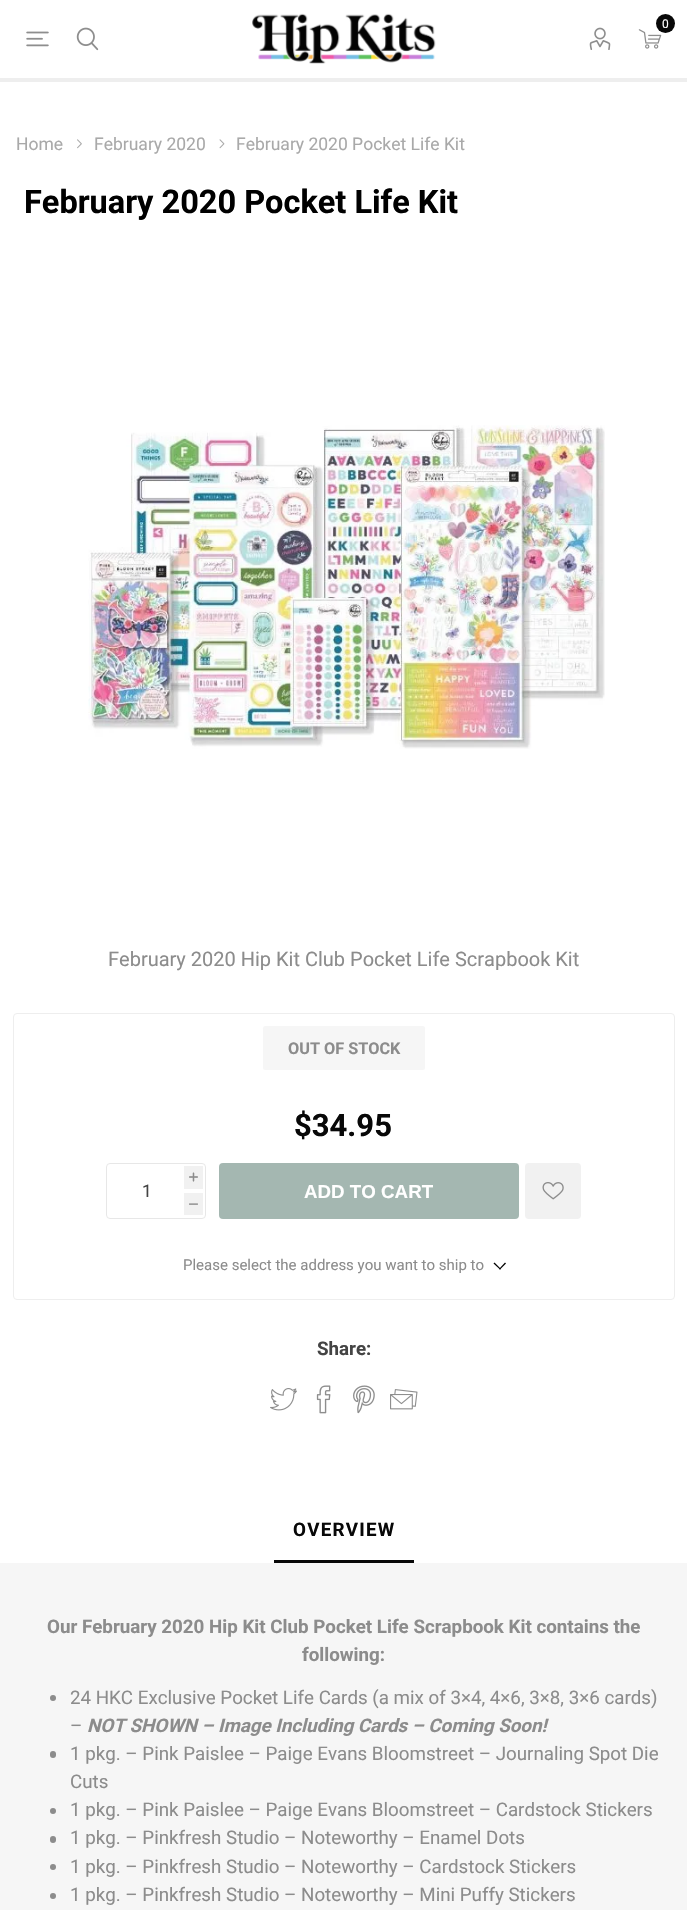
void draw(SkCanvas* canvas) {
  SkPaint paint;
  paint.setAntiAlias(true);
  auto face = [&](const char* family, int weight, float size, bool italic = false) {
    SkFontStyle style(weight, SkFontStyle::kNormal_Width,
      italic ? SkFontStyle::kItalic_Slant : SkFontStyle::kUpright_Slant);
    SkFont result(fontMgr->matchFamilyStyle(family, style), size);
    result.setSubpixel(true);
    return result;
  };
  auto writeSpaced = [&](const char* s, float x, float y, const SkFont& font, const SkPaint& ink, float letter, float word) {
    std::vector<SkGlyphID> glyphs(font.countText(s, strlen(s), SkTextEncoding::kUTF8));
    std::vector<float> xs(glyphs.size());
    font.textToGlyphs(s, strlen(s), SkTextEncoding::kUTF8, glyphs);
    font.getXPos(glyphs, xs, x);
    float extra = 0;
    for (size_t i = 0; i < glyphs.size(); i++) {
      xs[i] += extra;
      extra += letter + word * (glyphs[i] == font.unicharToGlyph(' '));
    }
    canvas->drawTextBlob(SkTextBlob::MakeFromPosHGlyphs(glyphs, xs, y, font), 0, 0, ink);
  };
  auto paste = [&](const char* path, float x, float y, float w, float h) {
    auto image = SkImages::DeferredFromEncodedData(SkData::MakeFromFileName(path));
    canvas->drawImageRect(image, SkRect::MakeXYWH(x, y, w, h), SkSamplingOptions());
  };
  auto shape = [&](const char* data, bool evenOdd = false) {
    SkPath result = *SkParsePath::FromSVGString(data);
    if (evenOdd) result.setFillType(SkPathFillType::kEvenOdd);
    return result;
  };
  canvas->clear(0xffffffff);
  paint.setColor(0xffeeeeee);
  canvas->drawRect(SkRect::MakeXYWH(0, 78, 687, 4), paint);
  paste("img/1.png", 252, 13, 184, 51);
  paste("img/2.png", 638, 29, 24, 20);
  paint.setColor(0xff080808);
  canvas->drawCircle(665.5f, 23.5f, 9.5f, paint);
  paste("img/3.png", 26, 31, 23, 16);
  paste("img/4.png", 76, 27, 23, 24);
  paste("img/5.png", 589, 27, 22, 23);
  paste("img/6.png", 77, 139, 5, 10);
  paste("img/7.png", 219, 139, 6, 10);
  paste("img/8.png", 88, 425, 517, 324);
  paint.setStroke(true);
  paint.setStrokeWidth(1);
  paint.setColor(0xffeeeeee);
  canvas->drawRoundRect(SkRect::MakeXYWH(13.5f, 1013.5f, 661, 286), 3.5f, 3.5f, paint);
  paint.setStroke(false);
  paint.setColor(0xfff6f6f6);
  canvas->drawRoundRect(SkRect::MakeXYWH(263, 1026, 162, 44), 2.5f, 2.5f, paint);
  paint.setStroke(true);
  paint.setColor(0xffe7e7e7);
  canvas->drawRoundRect(SkRect::MakeXYWH(106.5f, 1163.5f, 99, 55), 3.5f, 3.5f, paint);
  paint.setStroke(false);
  paint.setColor(0xfff1f1f1);
  canvas->drawRect(SkRect::MakeXYWH(184, 1166, 19, 23), paint);
  canvas->drawRect(SkRect::MakeXYWH(184, 1193, 19, 22), paint);
  paint.setColor(0xffa4b7b1);
  canvas->drawRoundRect(SkRect::MakeXYWH(219, 1163, 300, 56), 4, 4, paint);
  paint.setColor(0xfff1f1f1);
  canvas->drawRoundRect(SkRect::MakeXYWH(525, 1163, 56, 56), 4, 4, paint);
  paste("img/9.png", 542, 1182, 22, 18);
  paint.setColor(0xff000000);
  canvas->drawPath(shape("M505 1262.5L506 1263.5L500 1269.5L499 1269Z"), paint);
  canvas->drawPath(shape("M494.5 1262.5L501 1269L500 1269.5L493.5 1263.5Z"), paint);
  paste("img/10.png", 270, 1388, 27, 23);
  paste("img/11.png", 316, 1385, 15, 29);
  paste("img/12.png", 353, 1385, 22, 29);
  paste("img/13.png", 390, 1389, 28, 21);
  paint.setColor(0xff080808);
  canvas->drawRect(SkRect::MakeXYWH(274, 1560, 140, 3), paint);
  paint.setColor(0xfff6f6f6);
  canvas->drawRect(SkRect::MakeXYWH(0, 1563, 687, 347), paint);
  paint.setColor(0xff8c8c8c);
  canvas->drawCircle(53, 1698, 3, paint);
  canvas->drawRoundRect(SkRect::MakeXYWH(50, 1751, 6, 7), 3, 3, paint);
  canvas->drawCircle(53, 1811, 3, paint);
  canvas->drawRoundRect(SkRect::MakeXYWH(50, 1836, 6, 7), 3, 3, paint);
  canvas->drawCircle(53, 1867, 3, paint);
  canvas->drawCircle(53, 1896, 3, paint);
  auto f0 = face("Roboto", 400, 12);
  paint.setColor(0xffffffff);
  canvas->drawString("0", 662, 28, f0, paint);
  auto f1 = face("Roboto", 400, 17.5f);
  paint.setColor(0xffa9a9a9);
  {
    const struct { const char* s; float x, y; } items[] = {
      {"Home", 16, 150},
      {"February 2020", 94, 150},
      {"February 2020 Pocket Life Kit", 236, 150},
    };
    for (auto [s, x, y] : items) {
      canvas->drawString(s, x, y, f1, paint);
    }
  }
  auto f2 = face("Roboto", 700, 32.5f);
  paint.setColor(0xff000000);
  canvas->drawString("February 2020 Pocket Life Kit", 24, 213, f2, paint);
  auto f3 = face("Roboto", 400, 20);
  paint.setColor(0xff8c8c8c);
  canvas->drawString("February 2020 Hip Kit Club Pocket Life Scrapbook Kit", 108, 966, f3, paint);
  auto f4 = face("Roboto", 700, 16.25f);
  canvas->drawString("OUT OF STOCK", 288, 1054, f4, paint);
  auto f5 = face("Roboto", 700, 31);
  paint.setColor(0xff080808);
  canvas->drawString("$34.95", 294, 1136, f5, paint);
  auto f6 = face("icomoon", 400, 9);
  paint.setColor(0xff8c8c8c);
  canvas->drawString("i", 189, 1181, f6, paint);
  paint.setColor(0xff444444);
  canvas->drawString("1", 142, 1197, f1, paint);
  paint.setColor(0xff8c8c8c);
  canvas->drawString("h", 189, 1208, f6, paint);
  auto f7 = face("Liberation Sans", 700, 18.75f);
  paint.setColor(0xffffffff);
  canvas->drawString("ADD TO CART", 304, 1198, f7, paint);
  auto f8 = face("Roboto", 400, 15);
  paint.setColor(0xff8c8c8c);
  canvas->drawString("Please select the address you want to ship to", 183, 1270, f8, paint);
  auto f9 = face("Roboto", 700, 18.75f);
  paint.setColor(0xff444444);
  canvas->drawString("Share:", 317, 1355, f9, paint);
  paint.setColor(0xff080808);
  writeSpaced("OVERVIEW", 293, 1536, f9, paint, 1.25f, 0);
  paint.setColor(0xff8c8c8c);
  canvas->drawString("Our February 2020 Hip Kit Club Pocket Life Scrapbook Kit contains the", 47, 1633, f9, paint);
  canvas->drawString("following:", 302, 1661, f9, paint);
  auto f10 = face("Roboto", 400, 18.75f);
  canvas->drawString("24 HKC Exclusive Pocket Life Cards (a mix of 3×4, 4×6, 3×8, 3×6 cards)", 70, 1704, f10, paint);
  canvas->drawString("–", 70, 1732, f10, paint);
  auto f11 = face("Roboto", 700, 18.75f, true);
  canvas->drawString("NOT SHOWN – Image Including Cards – Coming Soon!", 87, 1732, f11, paint);
  {
    const struct { const char* s; float x, y; } items[] = {
      {"1 pkg. – Pink Paislee – Paige Evans Bloomstreet – Journaling Spot Die", 70, 1760},
      {"Cuts", 70, 1788},
      {"1 pkg. – Pink Paislee – Paige Evans Bloomstreet – Cardstock Stickers", 70, 1816},
      {"1 pkg. – Pinkfresh Studio – Noteworthy – Enamel Dots", 70, 1844},
      {"1 pkg. – Pinkfresh Studio – Noteworthy – Cardstock Stickers", 70, 1873},
      {"1 pkg. – Pinkfresh Studio – Noteworthy – Mini Puffy Stickers", 70, 1901},
    };
    for (auto [s, x, y] : items) {
      canvas->drawString(s, x, y, f10, paint);
    }
  }
}
